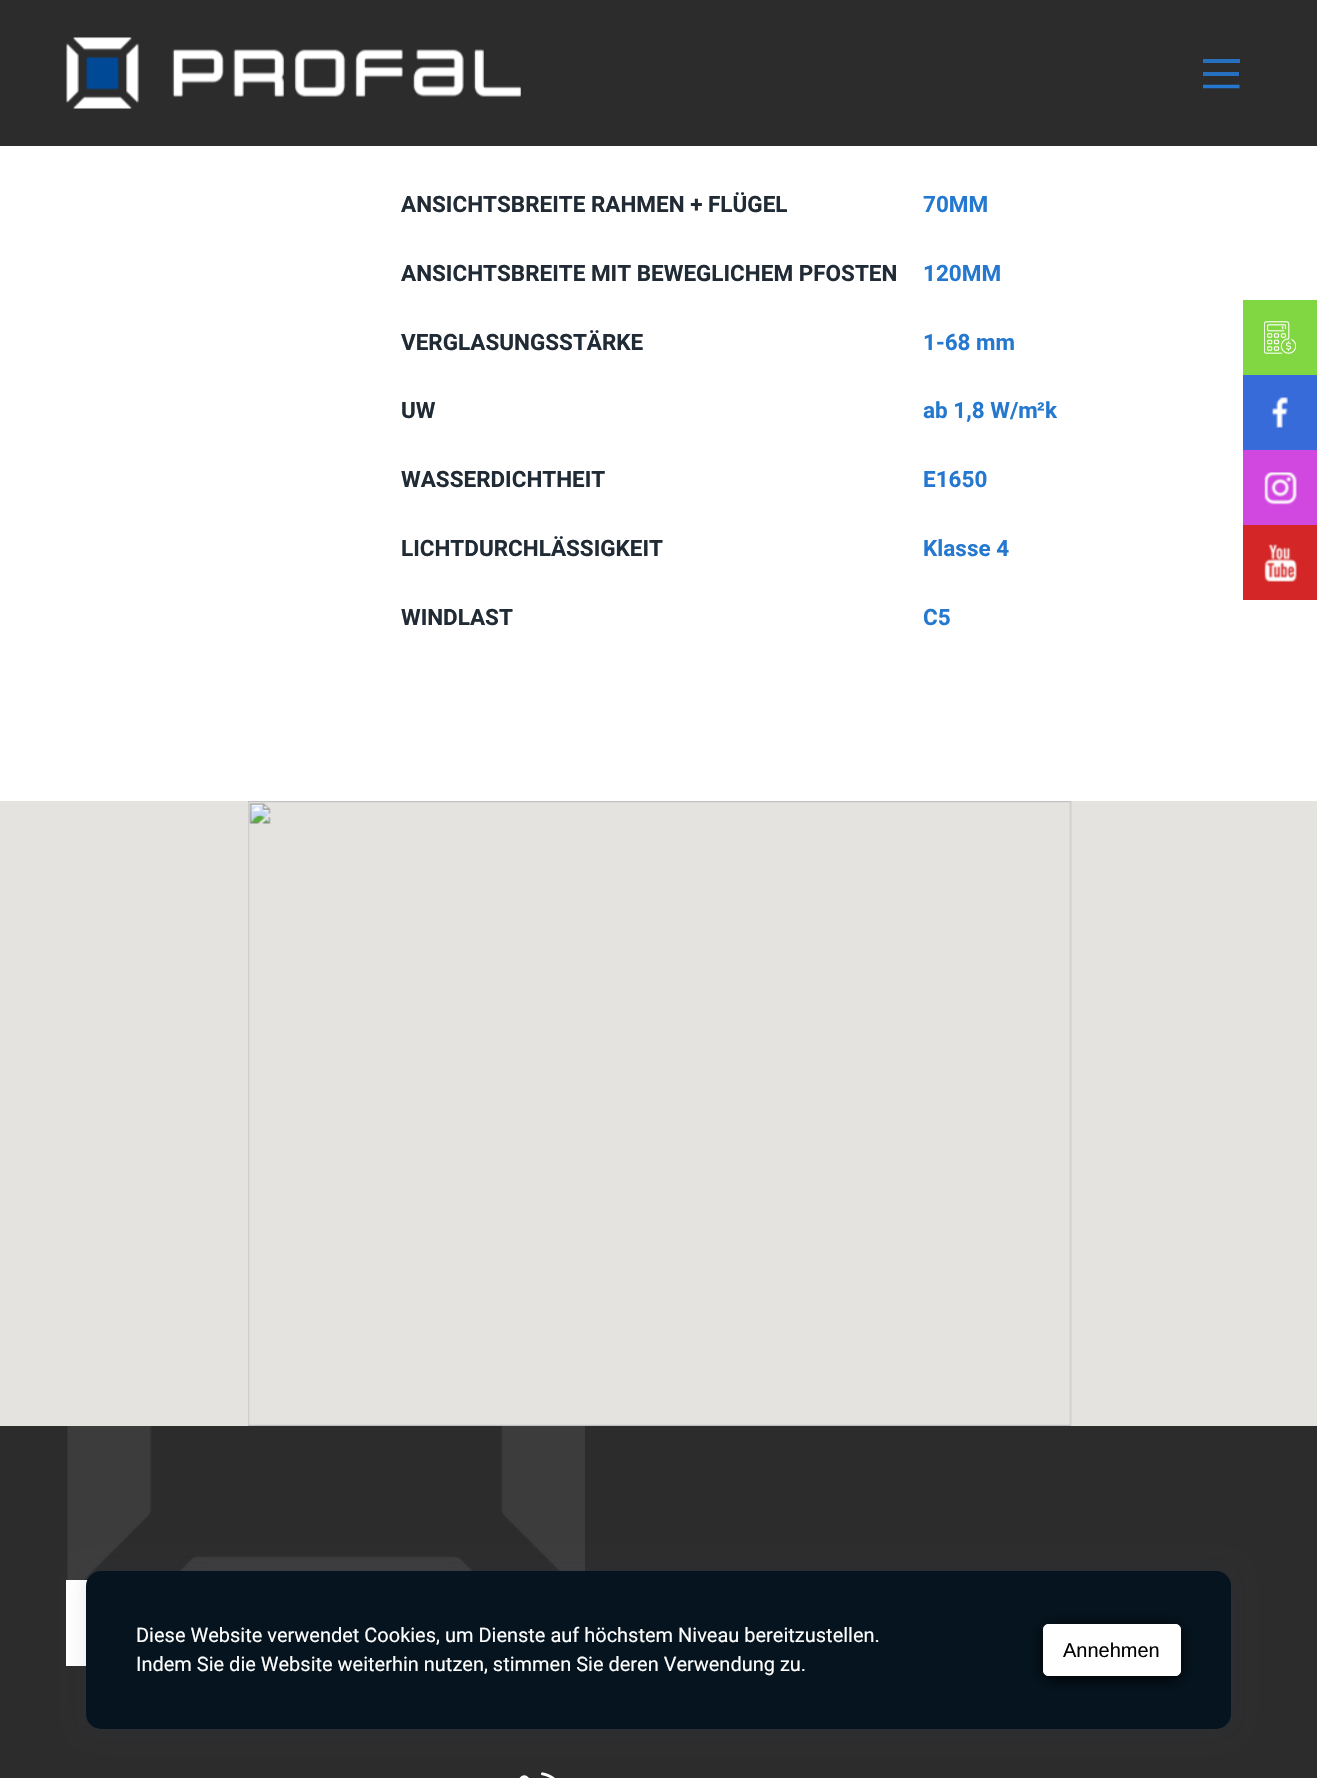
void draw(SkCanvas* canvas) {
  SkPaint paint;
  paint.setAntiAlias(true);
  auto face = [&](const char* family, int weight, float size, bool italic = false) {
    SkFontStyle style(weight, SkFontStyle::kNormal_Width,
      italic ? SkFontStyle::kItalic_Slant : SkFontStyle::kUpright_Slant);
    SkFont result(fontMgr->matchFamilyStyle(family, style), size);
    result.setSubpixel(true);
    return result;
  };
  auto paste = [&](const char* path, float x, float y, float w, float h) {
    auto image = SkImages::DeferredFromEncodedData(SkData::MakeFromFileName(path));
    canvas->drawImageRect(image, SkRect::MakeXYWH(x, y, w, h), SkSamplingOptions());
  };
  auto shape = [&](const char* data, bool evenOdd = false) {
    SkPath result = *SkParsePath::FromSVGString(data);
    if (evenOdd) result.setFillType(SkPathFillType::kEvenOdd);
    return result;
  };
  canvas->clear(0xffffffff);
  paint.setColor(0xff2c2c2c);
  canvas->drawRect(SkRect::MakeXYWH(0, 0, 1317, 146), paint);
  paste("img/1.png", 66, 37, 455, 72);
  paint.setColor(0xff2670bf);
  canvas->drawRect(SkRect::MakeXYWH(1203, 59, 37, 4), paint);
  canvas->drawRect(SkRect::MakeXYWH(1203, 72, 36, 4), paint);
  paint.setStroke(true);
  paint.setStrokeWidth(3.6f);
  paint.setColor(0xff2578cf);
  canvas->drawPath(shape("M1203 86.5H1239.5"), paint);
  paint.setStroke(false);
  paint.setColor(0xff81d742);
  canvas->drawRect(SkRect::MakeXYWH(1243, 300, 74, 75), paint);
  paste("img/2.png", 1264, 321, 32, 33);
  paint.setColor(0xff376bda);
  canvas->drawRect(SkRect::MakeXYWH(1243, 375, 74, 75), paint);
  paste("img/3.png", 1271, 397, 17, 31);
  paint.setColor(0xffd148e1);
  canvas->drawRect(SkRect::MakeXYWH(1243, 450, 74, 75), paint);
  paste("img/4.png", 1264, 472, 33, 33);
  paint.setColor(0xffd42626);
  canvas->drawRect(SkRect::MakeXYWH(1243, 525, 74, 75), paint);
  paste("img/5.png", 1264, 544, 33, 38);
  paste("img/6.png", 0, 801, 1317, 625);
  paint.setColor(0xff2c2c2c);
  canvas->drawRect(SkRect::MakeXYWH(0, 1426, 1317, 352), paint);
  paste("img/7.png", 67, 1426, 518, 154);
  paint.setColor(0xffffffff);
  canvas->drawRect(SkRect::MakeXYWH(66, 1580, 22, 86), paint);
  paste("img/8.png", 519, 1772, 36, 6);
  paint.setColor(0x1f2e407f);
  paint.setMaskFilter(SkMaskFilter::MakeBlur(kNormal_SkBlurStyle, 11));
  canvas->drawRoundRect(SkRect::MakeXYWH(86, 1571, 1145, 158), 15, 15, paint);
  paint.setMaskFilter(nullptr);
  paint.setColor(0xff05141f);
  canvas->drawRoundRect(SkRect::MakeXYWH(86, 1571, 1145, 158), 15, 15, paint);
  paint.setColor(0xff000000);
  paint.setMaskFilter(SkMaskFilter::MakeBlur(kNormal_SkBlurStyle, 7.5f));
  canvas->drawRoundRect(SkRect::MakeXYWH(1043, 1626, 138, 53), 5, 5, paint);
  paint.setMaskFilter(nullptr);
  paint.setColor(0xffffffff);
  canvas->drawRoundRect(SkRect::MakeXYWH(1043.5f, 1624.5f, 137, 51), 4.5f, 4.5f, paint);
  paint.setStroke(true);
  paint.setStrokeWidth(1);
  canvas->drawRoundRect(SkRect::MakeXYWH(1043.5f, 1624.5f, 137, 51), 4.5f, 4.5f, paint);
  auto f0 = face("Roboto", 700, 22.5f);
  paint.setStroke(false);
  paint.setColor(0xff212b35);
  canvas->drawString("ANSICHTSBREITE RAHMEN + FLÜGEL", 401, 212, f0, paint);
  paint.setColor(0xff2578cf);
  canvas->drawString("70MM", 923, 212, f0, paint);
  paint.setColor(0xff212b35);
  canvas->drawString("ANSICHTSBREITE MIT BEWEGLICHEM PFOSTEN", 401, 281, f0, paint);
  paint.setColor(0xff2578cf);
  canvas->drawString("120MM", 923, 281, f0, paint);
  paint.setColor(0xff212b35);
  canvas->drawString("VERGLASUNGSSTÄRKE", 401, 350, f0, paint);
  paint.setColor(0xff2578cf);
  canvas->drawString("1-68 mm", 923, 350, f0, paint);
  paint.setColor(0xff212b35);
  canvas->drawString("UW", 401, 418, f0, paint);
  paint.setColor(0xff2578cf);
  canvas->drawString("ab 1,8 W/m", 923, 418, f0, paint);
  auto f1 = face("Liberation Sans", 700, 22.5f);
  canvas->drawString("²", 1037, 418, f1, paint);
  canvas->drawString("k", 1045, 418, f0, paint);
  paint.setColor(0xff212b35);
  canvas->drawString("WASSERDICHTHEIT", 401, 487, f0, paint);
  paint.setColor(0xff2578cf);
  canvas->drawString("E1650", 923, 487, f0, paint);
  paint.setColor(0xff212b35);
  canvas->drawString("LICHTDURCHLÄSSIGKEIT", 401, 556, f0, paint);
  paint.setColor(0xff2578cf);
  canvas->drawString("Klasse 4", 923, 556, f0, paint);
  paint.setColor(0xff212b35);
  canvas->drawString("WINDLAST", 401, 625, f0, paint);
  paint.setColor(0xff2578cf);
  canvas->drawString("C5", 923, 625, f0, paint);
  auto f2 = face("Roboto", 400, 20);
  paint.setColor(0xffffffff);
  canvas->drawString("Diese Website verwendet Cookies, um Dienste auf höchstem Niveau bereitzustellen.", 136, 1642, f2, paint);
  canvas->drawString("Indem Sie die Website weiterhin nutzen, stimmen Sie deren Verwendung zu.", 136, 1671, f2, paint);
  auto f3 = face("Liberation Sans", 400, 20);
  paint.setColor(0xff000000);
  canvas->drawString("Annehmen", 1063, 1657, f3, paint);
}
